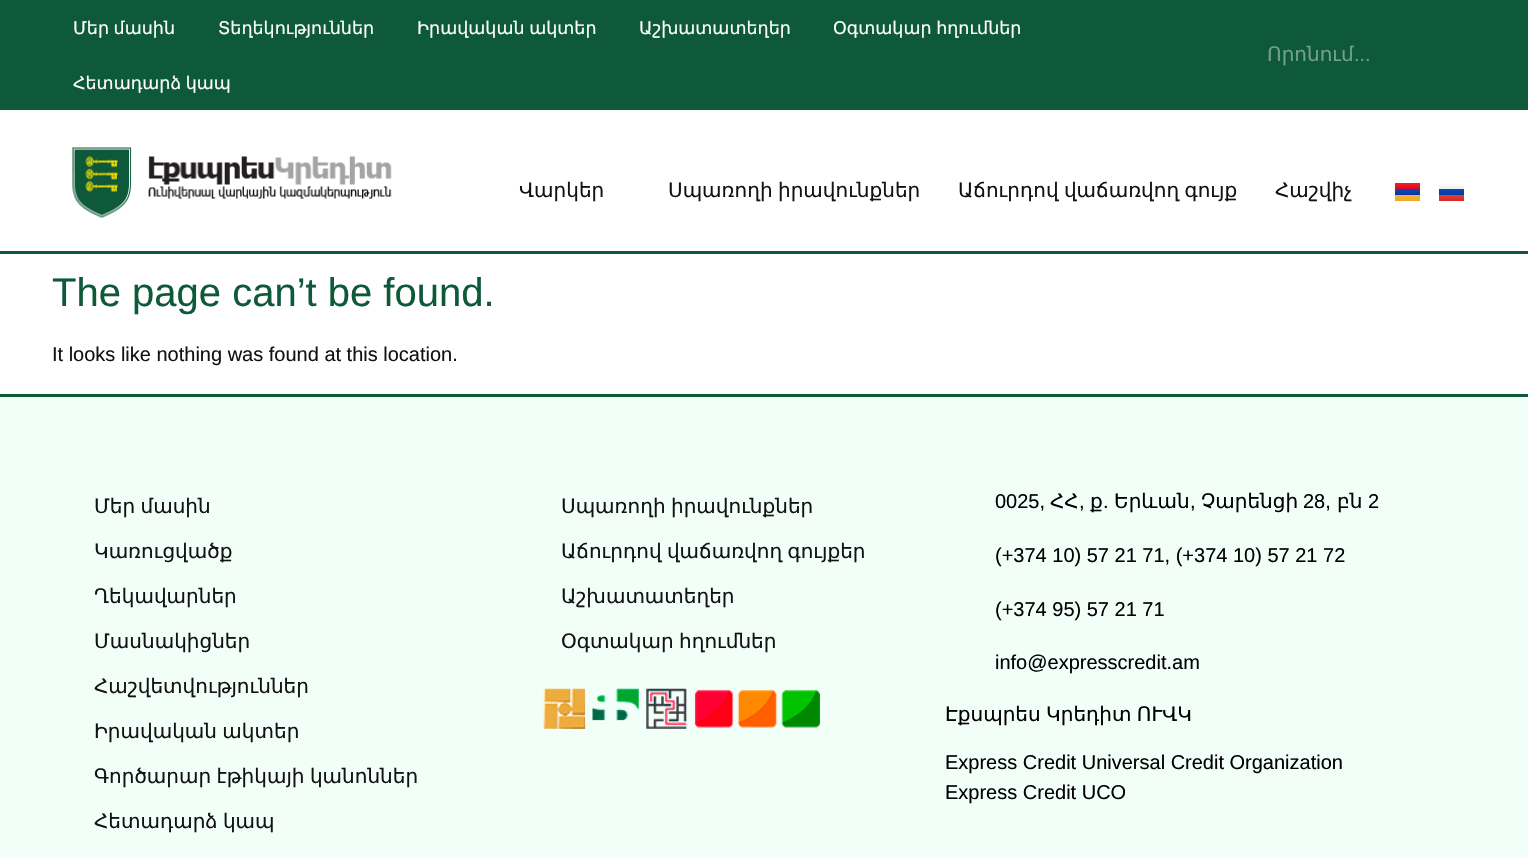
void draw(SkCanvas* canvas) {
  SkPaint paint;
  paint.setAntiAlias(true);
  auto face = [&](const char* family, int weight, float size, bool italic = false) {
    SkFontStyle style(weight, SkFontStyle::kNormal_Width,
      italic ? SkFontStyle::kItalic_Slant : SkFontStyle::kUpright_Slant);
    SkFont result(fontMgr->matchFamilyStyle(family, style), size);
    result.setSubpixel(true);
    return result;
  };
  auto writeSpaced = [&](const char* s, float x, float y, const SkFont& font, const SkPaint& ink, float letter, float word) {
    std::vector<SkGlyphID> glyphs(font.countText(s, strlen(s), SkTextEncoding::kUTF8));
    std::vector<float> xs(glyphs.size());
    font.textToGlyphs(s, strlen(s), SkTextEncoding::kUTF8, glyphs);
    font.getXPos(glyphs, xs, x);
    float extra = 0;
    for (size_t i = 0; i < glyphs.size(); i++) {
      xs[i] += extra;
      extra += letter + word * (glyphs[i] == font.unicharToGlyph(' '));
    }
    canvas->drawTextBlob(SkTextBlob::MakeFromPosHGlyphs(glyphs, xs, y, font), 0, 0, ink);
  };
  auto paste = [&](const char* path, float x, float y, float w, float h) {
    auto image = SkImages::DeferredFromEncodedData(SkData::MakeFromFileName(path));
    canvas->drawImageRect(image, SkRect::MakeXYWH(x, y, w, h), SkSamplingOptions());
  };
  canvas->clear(0xffffffff);
  paint.setColor(0xff0d5939);
  canvas->drawRect(SkRect::MakeXYWH(0, 0, 1528, 110), paint);
  canvas->drawRect(SkRect::MakeXYWH(0, 251, 1528, 3), paint);
  paste("img/1.png", 72, 147, 320, 71);
  {
    const SkColor colors[] = {0xfff01c31, 0xffd70a1f};
    const float stops[] = {0, 1};
    const SkPoint ends[] = {{1408, 183}, {1408, 189}};
    paint.setShader(SkGradientShader::MakeLinear(ends, colors, stops, 2, SkTileMode::kClamp));
    paint.setAlpha(255);
  }
  canvas->drawRect(SkRect::MakeXYWH(1395, 183, 25, 6), paint);
  {
    const SkColor colors[] = {0xff1047b9, 0xff06379d};
    const float stops[] = {0, 1};
    const SkPoint ends[] = {{1408, 189}, {1408, 195}};
    paint.setShader(SkGradientShader::MakeLinear(ends, colors, stops, 2, SkTileMode::kClamp));
    paint.setAlpha(255);
  }
  canvas->drawRect(SkRect::MakeXYWH(1395, 189, 25, 6), paint);
  {
    const SkColor colors[] = {0xfff5b23e, 0xfff0a728};
    const float stops[] = {0, 1};
    const SkPoint ends[] = {{1408, 195}, {1408, 201}};
    paint.setShader(SkGradientShader::MakeLinear(ends, colors, stops, 2, SkTileMode::kClamp));
    paint.setAlpha(255);
  }
  canvas->drawRect(SkRect::MakeXYWH(1395, 195, 25, 6), paint);
  {
    const SkColor colors[] = {0xffffffff, 0xfff0f0f0};
    const float stops[] = {0, 1};
    const SkPoint ends[] = {{1452, 183}, {1452, 189}};
    paint.setShader(SkGradientShader::MakeLinear(ends, colors, stops, 2, SkTileMode::kClamp));
    paint.setAlpha(255);
  }
  canvas->drawRect(SkRect::MakeXYWH(1439, 184, 25, 5), paint);
  {
    const SkColor colors[] = {0xff0c47b7, 0xff073da4};
    const float stops[] = {0, 1};
    const SkPoint ends[] = {{1452, 189}, {1452, 195}};
    paint.setShader(SkGradientShader::MakeLinear(ends, colors, stops, 2, SkTileMode::kClamp));
    paint.setAlpha(255);
  }
  canvas->drawRect(SkRect::MakeXYWH(1439, 189, 25, 6), paint);
  {
    const SkColor colors[] = {0xffe53b35, 0xffd32e28};
    const float stops[] = {0, 1};
    const SkPoint ends[] = {{1452, 195}, {1452, 201}};
    paint.setShader(SkGradientShader::MakeLinear(ends, colors, stops, 2, SkTileMode::kClamp));
    paint.setAlpha(255);
  }
  canvas->drawRect(SkRect::MakeXYWH(1439, 195, 25, 6), paint);
  paint.setShader(nullptr);
  paint.setColor(0xfff2fff9);
  canvas->drawRect(SkRect::MakeXYWH(0, 397, 1528, 461), paint);
  paint.setColor(0xff0d5939);
  canvas->drawRect(SkRect::MakeXYWH(0, 394, 1528, 3), paint);
  paste("img/2.png", 543, 688, 277, 41);
  auto f0 = face("DejaVu Sans", 400, 17.5f);
  paint.setColor(0xffffffff);
  writeSpaced("Մեր մասին", 73, 34, f0, paint, 0, -1);
  canvas->drawString("Տեղեկություններ", 218, 34, f0, paint);
  writeSpaced("Իրավական ակտեր", 417, 34, f0, paint, 0, -1);
  canvas->drawString("Աշխատատեղեր", 639, 34, f0, paint);
  writeSpaced("Օգտակար հղումներ", 833, 34, f0, paint, 0, -1);
  writeSpaced("Հետադարձ կապ", 73, 89, f0, paint, 0, -1);
  auto f1 = face("DejaVu Sans", 400, 20);
  paint.setColor(0xff739f8c);
  canvas->drawString("Որոնում", 1267, 61, f1, paint);
  auto f2 = face("Liberation Sans", 400, 20);
  canvas->drawString("...", 1354, 61, f2, paint);
  paint.setColor(0xff121212);
  canvas->drawString("Վարկեր", 519, 197, f1, paint);
  writeSpaced("Սպառողի իրավունքներ", 668, 197, f1, paint, 0, -1);
  writeSpaced("Աճուրդով վաճառվող գույք", 958, 197, f1, paint, 0, -1);
  canvas->drawString("Հաշվիչ", 1275, 197, f1, paint);
  auto f3 = face("Liberation Sans", 400, 40);
  paint.setColor(0xff0d5939);
  canvas->drawString("The page can’t be found.", 52, 306, f3, paint);
  paint.setColor(0xff121212);
  canvas->drawString("It looks like nothing was found at this location.", 52, 361, f2, paint);
  writeSpaced("Մեր մասին", 94, 513, f1, paint, 0, -1);
  {
    const struct { const char* s; float x, y; } items[] = {
      {"Կառուցվածք", 94, 558},
      {"Ղեկավարներ", 94, 603},
      {"Մասնակիցներ", 94, 648},
      {"Հաշվետվություններ", 94, 693},
    };
    for (auto [s, x, y] : items) {
      canvas->drawString(s, x, y, f1, paint);
    }
  }
  {
    const struct { const char* s; float x, y; } items[] = {
      {"Իրավական ակտեր", 94, 738},
      {"Գործարար էթիկայի կանոններ", 94, 783},
      {"Հետադարձ կապ", 94, 828},
      {"Սպառողի իրավունքներ", 561, 513},
      {"Աճուրդով վաճառվող գույքեր", 561, 558},
    };
    for (auto [s, x, y] : items) {
      writeSpaced(s, x, y, f1, paint, 0, -1);
    }
  }
  canvas->drawString("Աշխատատեղեր", 561, 603, f1, paint);
  writeSpaced("Օգտակար հղումներ", 561, 648, f1, paint, 0, -1);
  paint.setColor(0xff000000);
  canvas->drawString("0025,", 995, 508, f2, paint);
  canvas->drawString("ՀՀ", 1050, 508, f1, paint);
  canvas->drawString(",", 1079, 508, f2, paint);
  canvas->drawString("ք", 1090, 508, f1, paint);
  canvas->drawString(".", 1103, 508, f2, paint);
  canvas->drawString("Երևան", 1114, 508, f1, paint);
  canvas->drawString(",", 1190, 508, f2, paint);
  canvas->drawString("Չարենցի", 1201, 508, f1, paint);
  canvas->drawString("28,", 1303, 508, f2, paint);
  canvas->drawString("բն", 1337, 508, f1, paint);
  {
    const struct { const char* s; float x, y; } items[] = {
      {"2", 1368, 508},
      {"(+374 10) 57 21 71, (+374 10) 57 21 72", 995, 562},
      {"(+374 95) 57 21 71", 995, 616},
      {"info@expresscredit.am", 995, 669},
    };
    for (auto [s, x, y] : items) {
      canvas->drawString(s, x, y, f2, paint);
    }
  }
  writeSpaced("Էքսպրես Կրեդիտ ՈՒՎԿ", 945, 721, f1, paint, 0, -1);
  canvas->drawString("Express Credit Universal Credit Organization", 945, 769, f2, paint);
  canvas->drawString("Express Credit UCO", 945, 799, f2, paint);
}
